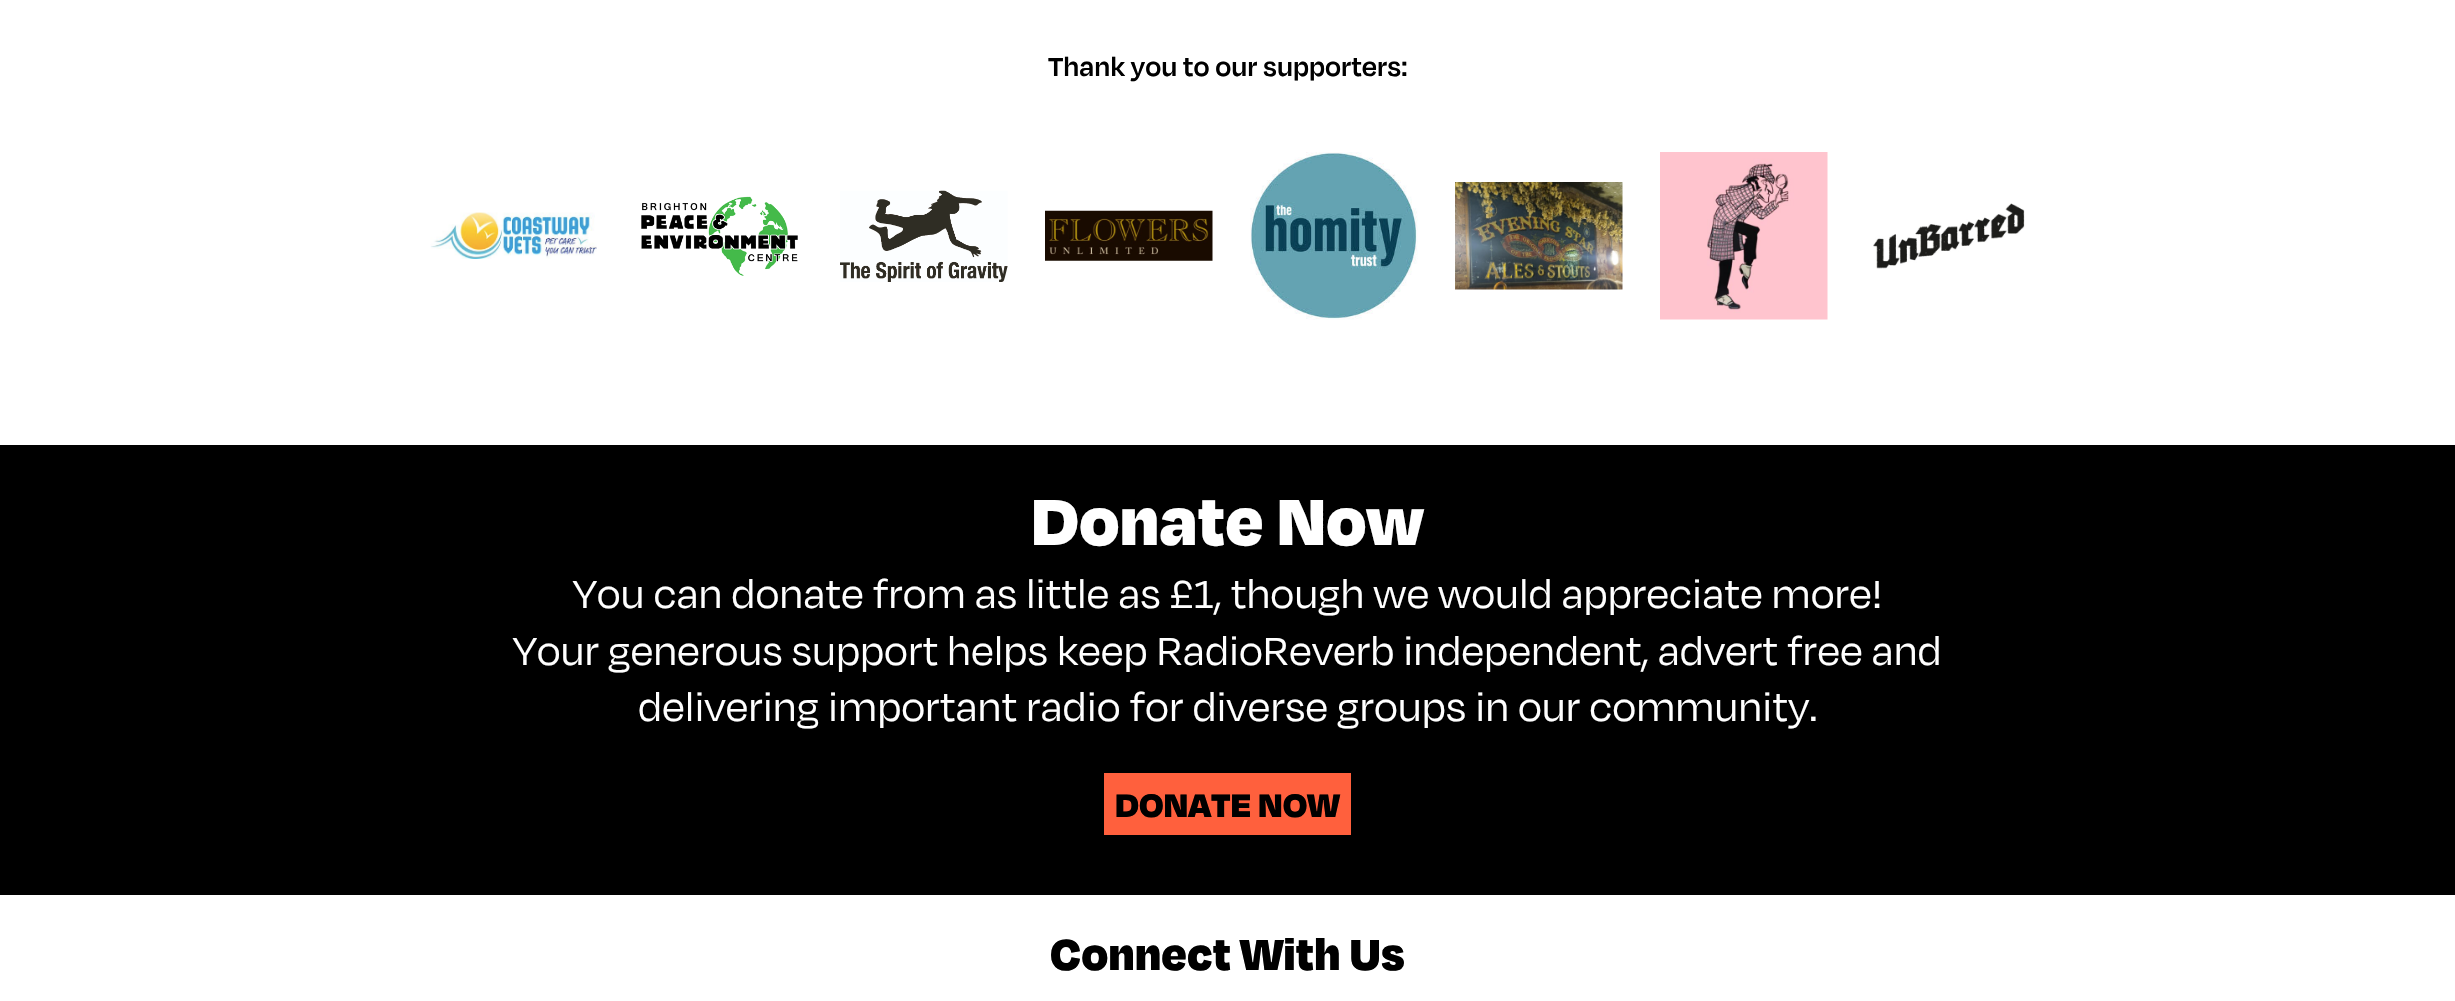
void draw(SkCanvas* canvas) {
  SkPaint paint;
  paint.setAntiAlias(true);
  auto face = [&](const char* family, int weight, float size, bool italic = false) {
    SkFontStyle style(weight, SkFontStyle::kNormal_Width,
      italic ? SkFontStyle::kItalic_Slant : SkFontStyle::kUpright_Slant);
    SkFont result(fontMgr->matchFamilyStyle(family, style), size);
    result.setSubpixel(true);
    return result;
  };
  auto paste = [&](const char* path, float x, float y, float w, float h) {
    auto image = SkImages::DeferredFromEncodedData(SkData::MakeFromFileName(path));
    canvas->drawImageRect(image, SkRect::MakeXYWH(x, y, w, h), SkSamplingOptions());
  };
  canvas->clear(0xffffffff);
  paste("img/1.png", 430, 212, 167, 47);
  paste("img/2.png", 641, 196, 157, 80);
  paste("img/3.png", 840, 190, 168, 92);
  paste("img/4.png", 1045, 210, 168, 51);
  paste("img/5.png", 1250, 152, 168, 168);
  paste("img/6.png", 1455, 182, 168, 108);
  paste("img/7.png", 1660, 152, 168, 168);
  paste("img/8.png", 1873, 203, 152, 66);
  paint.setColor(0xff000000);
  canvas->drawRect(SkRect::MakeXYWH(0, 445, 2455, 450), paint);
  paint.setColor(0xffff603d);
  canvas->drawRect(SkRect::MakeXYWH(1104, 773, 247, 62), paint);
  auto f0 = face("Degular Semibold", 600, 30);
  paint.setColor(0xff000000);
  canvas->drawString("Thank you to our supporters:", 1048, 76, f0, paint);
  auto f1 = face("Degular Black", 900, 75);
  paint.setColor(0xffffffff);
  canvas->drawString("Donate Now", 1031, 545, f1, paint);
  auto f2 = face("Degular", 400, 45);
  {
    const struct { const char* s; float x, y; } items[] = {
      {"You can donate from as little as £1, though we would appreciate more!", 573, 608},
      {"Your generous support helps keep RadioReverb independent, advert free and", 513, 665},
      {"delivering important radio for diverse groups in our community.", 638, 721},
    };
    for (auto [s, x, y] : items) {
      canvas->drawString(s, x, y, f2, paint);
    }
  }
  auto f3 = face("Degular Black", 900, 37.5f);
  paint.setColor(0xff000000);
  canvas->drawString("DONATE NOW", 1115, 817, f3, paint);
  auto f4 = face("Degular Black", 900, 50);
  canvas->drawString("Connect With Us", 1050, 970, f4, paint);
}
